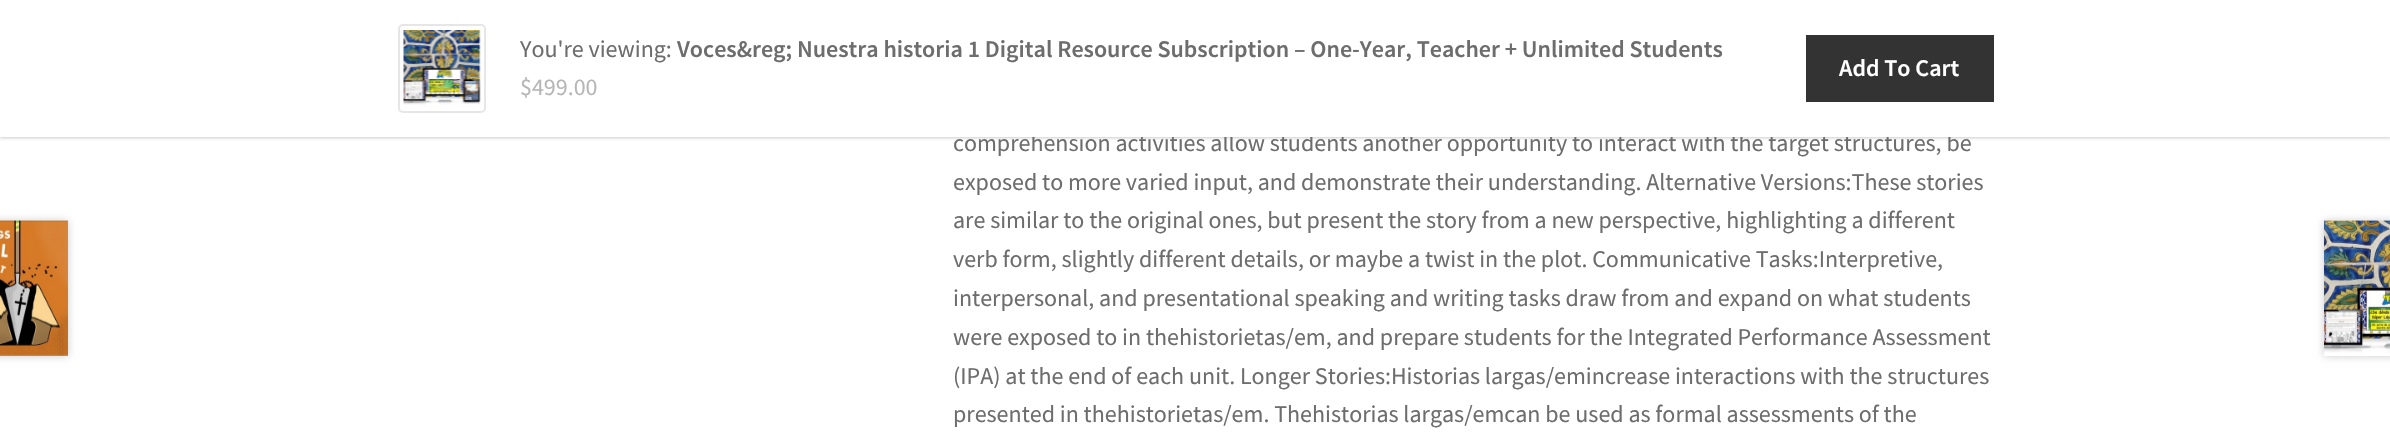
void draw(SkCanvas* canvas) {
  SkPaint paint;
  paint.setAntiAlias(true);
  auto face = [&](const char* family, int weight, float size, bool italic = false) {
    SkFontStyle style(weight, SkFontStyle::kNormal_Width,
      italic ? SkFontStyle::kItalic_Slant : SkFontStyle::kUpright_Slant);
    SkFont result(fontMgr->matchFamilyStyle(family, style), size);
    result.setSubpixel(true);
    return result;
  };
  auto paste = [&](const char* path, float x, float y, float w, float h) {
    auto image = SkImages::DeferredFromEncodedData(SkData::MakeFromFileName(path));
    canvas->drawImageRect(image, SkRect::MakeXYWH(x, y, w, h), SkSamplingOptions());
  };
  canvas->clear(0xffffffff);
  paint.setColor(0x33000000);
  paint.setMaskFilter(SkMaskFilter::MakeBlur(kNormal_SkBlurStyle, 1.5f));
  canvas->drawRect(SkRect::MakeXYWH(0, 2, 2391, 136), paint);
  paint.setMaskFilter(nullptr);
  paint.setMaskFilter(SkMaskFilter::MakeBlur(kNormal_SkBlurStyle, 4));
  canvas->drawRect(SkRect::MakeXYWH(-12, 221, 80, 135), paint);
  paint.setMaskFilter(nullptr);
  paste("img/2.png", 0, 220, 68, 136);
  paint.setMaskFilter(SkMaskFilter::MakeBlur(kNormal_SkBlurStyle, 4));
  canvas->drawRect(SkRect::MakeXYWH(2324, 221, 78, 135), paint);
  paint.setMaskFilter(nullptr);
  paint.setColor(0xffffffff);
  canvas->drawRect(SkRect::MakeXYWH(2324, 353, 66, 3), paint);
  paste("img/3.png", 2324, 220, 66, 133);
  auto f0 = face("Source Sans Pro", 400, 24);
  paint.setColor(0xff6d6d6d);
  canvas->drawString("comprehension activities allow students another opportunity to interact with the target structures, be", 953, 151, f0, paint);
  paint.setColor(0xffffffff);
  canvas->drawRect(SkRect::MakeXYWH(0, 0, 2390, 137), paint);
  paint.setColor(0xffb6b6b6);
  canvas->drawString("$499.00", 520, 95, f0, paint);
  paint.setColor(0xff333333);
  canvas->drawRect(SkRect::MakeXYWH(1806, 35, 188, 67), paint);
  auto f1 = face("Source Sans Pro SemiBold", 600, 24);
  paint.setColor(0xffffffff);
  canvas->drawString("Add To Cart", 1839, 76, f1, paint);
  paint.setColor(0xff6d6d6d);
  canvas->drawString("Voces&reg; Nuestra historia 1 Digital Resource Subscription – One-Year, Teacher + Unlimited Students", 677, 57, f1, paint);
  canvas->drawString("You're viewing:", 520, 57, f0, paint);
  paint.setStroke(true);
  paint.setStrokeWidth(2);
  paint.setColor(0xffe6e6e6);
  canvas->drawRoundRect(SkRect::MakeXYWH(399, 25, 86, 87), 4, 4, paint);
  paste("img/1.png", 403, 30, 78, 75);
  paint.setStroke(false);
  paint.setColor(0xff6d6d6d);
  {
    const struct { const char* s; float x, y; } items[] = {
      {"exposed to more varied input, and demonstrate their understanding. Alternative Versions:These stories", 953, 190},
      {"are similar to the original ones, but present the story from a new perspective, highlighting a different", 953, 228},
      {"verb form, slightly different details, or maybe a twist in the plot. Communicative Tasks:Interpretive,", 953, 267},
      {"interpersonal, and presentational speaking and writing tasks draw from and expand on what students", 953, 306},
      {"were exposed to in thehistorietas/em, and prepare students for the Integrated Performance Assessment", 953, 345},
      {"(IPA) at the end of each unit. Longer Stories:Historias largas/emincrease interactions with the structures", 953, 384},
      {"presented in thehistorietas/em. Thehistorias largas/emcan be used as formal assessments of the", 953, 422},
    };
    for (auto [s, x, y] : items) {
      canvas->drawString(s, x, y, f0, paint);
    }
  }
}
